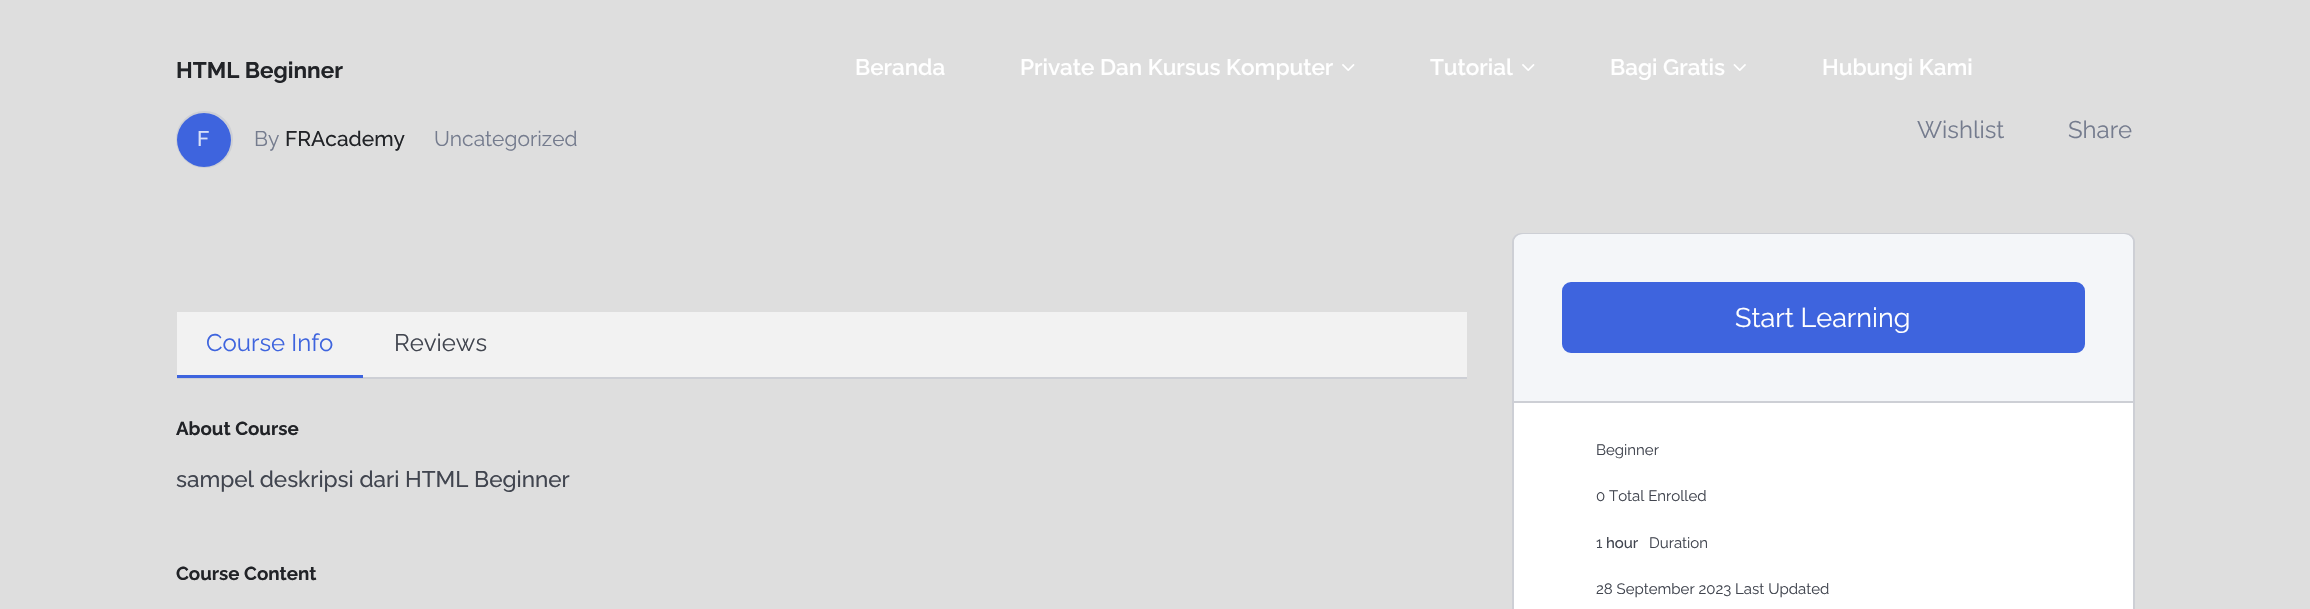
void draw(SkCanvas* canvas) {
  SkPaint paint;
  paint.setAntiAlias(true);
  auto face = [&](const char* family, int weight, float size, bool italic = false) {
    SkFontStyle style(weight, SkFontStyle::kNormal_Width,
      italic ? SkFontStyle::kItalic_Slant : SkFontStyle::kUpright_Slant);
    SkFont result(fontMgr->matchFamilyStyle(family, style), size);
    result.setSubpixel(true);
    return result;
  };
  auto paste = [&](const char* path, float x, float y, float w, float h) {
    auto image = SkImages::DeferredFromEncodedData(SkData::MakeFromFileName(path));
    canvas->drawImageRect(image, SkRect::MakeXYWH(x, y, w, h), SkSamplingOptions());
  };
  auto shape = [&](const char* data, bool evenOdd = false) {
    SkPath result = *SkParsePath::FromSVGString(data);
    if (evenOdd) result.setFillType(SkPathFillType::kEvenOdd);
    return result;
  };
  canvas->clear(0xffdedede);
  paste("img/1.png", 1342, 64, 13, 7);
  paste("img/1.png", 1522, 64, 13, 7);
  paste("img/2.png", 1733, 64, 13, 7);
  paint.setStroke(true);
  paint.setStrokeWidth(2);
  paint.setColor(0xffcdcfd5);
  canvas->drawCircle(204.5f, 139.5f, 27.5f, paint);
  paint.setStroke(false);
  paint.setColor(0xff3e64de);
  canvas->drawCircle(204, 140, 27, paint);
  {
    const struct { float x, y, w, h; SkColor color; } items[] = {
      {177, 312, 1290, 65, 0xfff2f2f2},
      {177, 377, 1290, 2, 0xffcdcfd5},
      {177, 375, 186, 3, 0xff3e64de},
    };
    for (auto [x, y, w, h, color] : items) {
      paint.setColor(color);
      canvas->drawRect(SkRect::MakeXYWH(x, y, w, h), paint);
    }
  }
  paint.setColor(0xffffffff);
  canvas->drawRoundRect(SkRect::MakeXYWH(1513, 234, 621, 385), 8, 8, paint);
  paint.setStroke(true);
  paint.setColor(0xffcdcfd5);
  canvas->drawRoundRect(SkRect::MakeXYWH(1513, 234, 621, 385), 8, 8, paint);
  paint.setStroke(false);
  paint.setColor(0xfff4f6f9);
  canvas->drawPath(shape("M1523 234H2124C2129 234 2133 238 2133 243V401H1514V243C1514 238 1518 234 1523 234Z"), paint);
  paint.setColor(0xff3e64de);
  canvas->drawRoundRect(SkRect::MakeXYWH(1563, 283, 521, 69), 8, 8, paint);
  paint.setStroke(true);
  canvas->drawRoundRect(SkRect::MakeXYWH(1563, 283, 521, 69), 8, 8, paint);
  paint.setStroke(false);
  paint.setColor(0xffcdcfd5);
  canvas->drawRect(SkRect::MakeXYWH(1514, 401, 619, 2), paint);
  auto f0 = face("Raleway", 600, 22.5f);
  paint.setColor(0xffffffff);
  {
    const struct { const char* s; float x, y; } items[] = {
      {"Beranda", 855, 75},
      {"Private Dan Kursus Komputer", 1020, 75},
      {"Tutorial", 1430, 75},
      {"Bagi Gratis", 1610, 75},
      {"Hubungi Kami", 1822, 75},
    };
    for (auto [s, x, y] : items) {
      canvas->drawString(s, x, y, f0, paint);
    }
  }
  auto f1 = face("Raleway", 700, 22.5f);
  paint.setColor(0xff212327);
  canvas->drawString("HTML Beginner", 176, 78, f1, paint);
  auto f2 = face("Raleway", 500, 21);
  paint.setColor(0xffd8e0f8);
  canvas->drawString("F", 197, 146, f2, paint);
  auto f3 = face("Raleway", 400, 21);
  paint.setColor(0xff757c8e);
  canvas->drawString("By", 254, 146, f3, paint);
  paint.setColor(0xff212327);
  canvas->drawString("FRAcademy", 285, 146, f2, paint);
  paint.setColor(0xff757c8e);
  canvas->drawString("Uncategorized", 434, 146, f3, paint);
  auto f4 = face("Raleway", 400, 24);
  canvas->drawString("Wishlist", 1917, 138, f4, paint);
  canvas->drawString("Share", 2068, 138, f4, paint);
  paint.setColor(0xff3e64de);
  canvas->drawString("Course Info", 206, 351, f4, paint);
  paint.setColor(0xff41454f);
  canvas->drawString("Reviews", 394, 351, f4, paint);
  auto f5 = face("Raleway", 700, 18.75f);
  paint.setColor(0xff212327);
  canvas->drawString("About Course", 176, 435, f5, paint);
  auto f6 = face("Raleway", 500, 22.5f);
  paint.setColor(0xff41454f);
  canvas->drawString("sampel deskripsi dari HTML Beginner", 176, 487, f6, paint);
  paint.setColor(0xff212327);
  canvas->drawString("Course Content", 176, 580, f5, paint);
  auto f7 = face("Raleway", 400, 27);
  paint.setColor(0xffffffff);
  canvas->drawString("Start Learning", 1735, 327, f7, paint);
  auto f8 = face("Raleway", 400, 15);
  paint.setColor(0xff41454f);
  {
    const struct { const char* s; float x, y; } items[] = {
      {"Beginner", 1596, 455},
      {"0 Total Enrolled", 1596, 501},
      {"1", 1596, 548},
    };
    for (auto [s, x, y] : items) {
      canvas->drawString(s, x, y, f8, paint);
    }
  }
  auto f9 = face("Raleway", 500, 15);
  canvas->drawString("hour", 1606, 548, f9, paint);
  canvas->drawString("Duration", 1649, 548, f8, paint);
  canvas->drawString("28 September 2023 Last Updated", 1596, 594, f8, paint);
}
